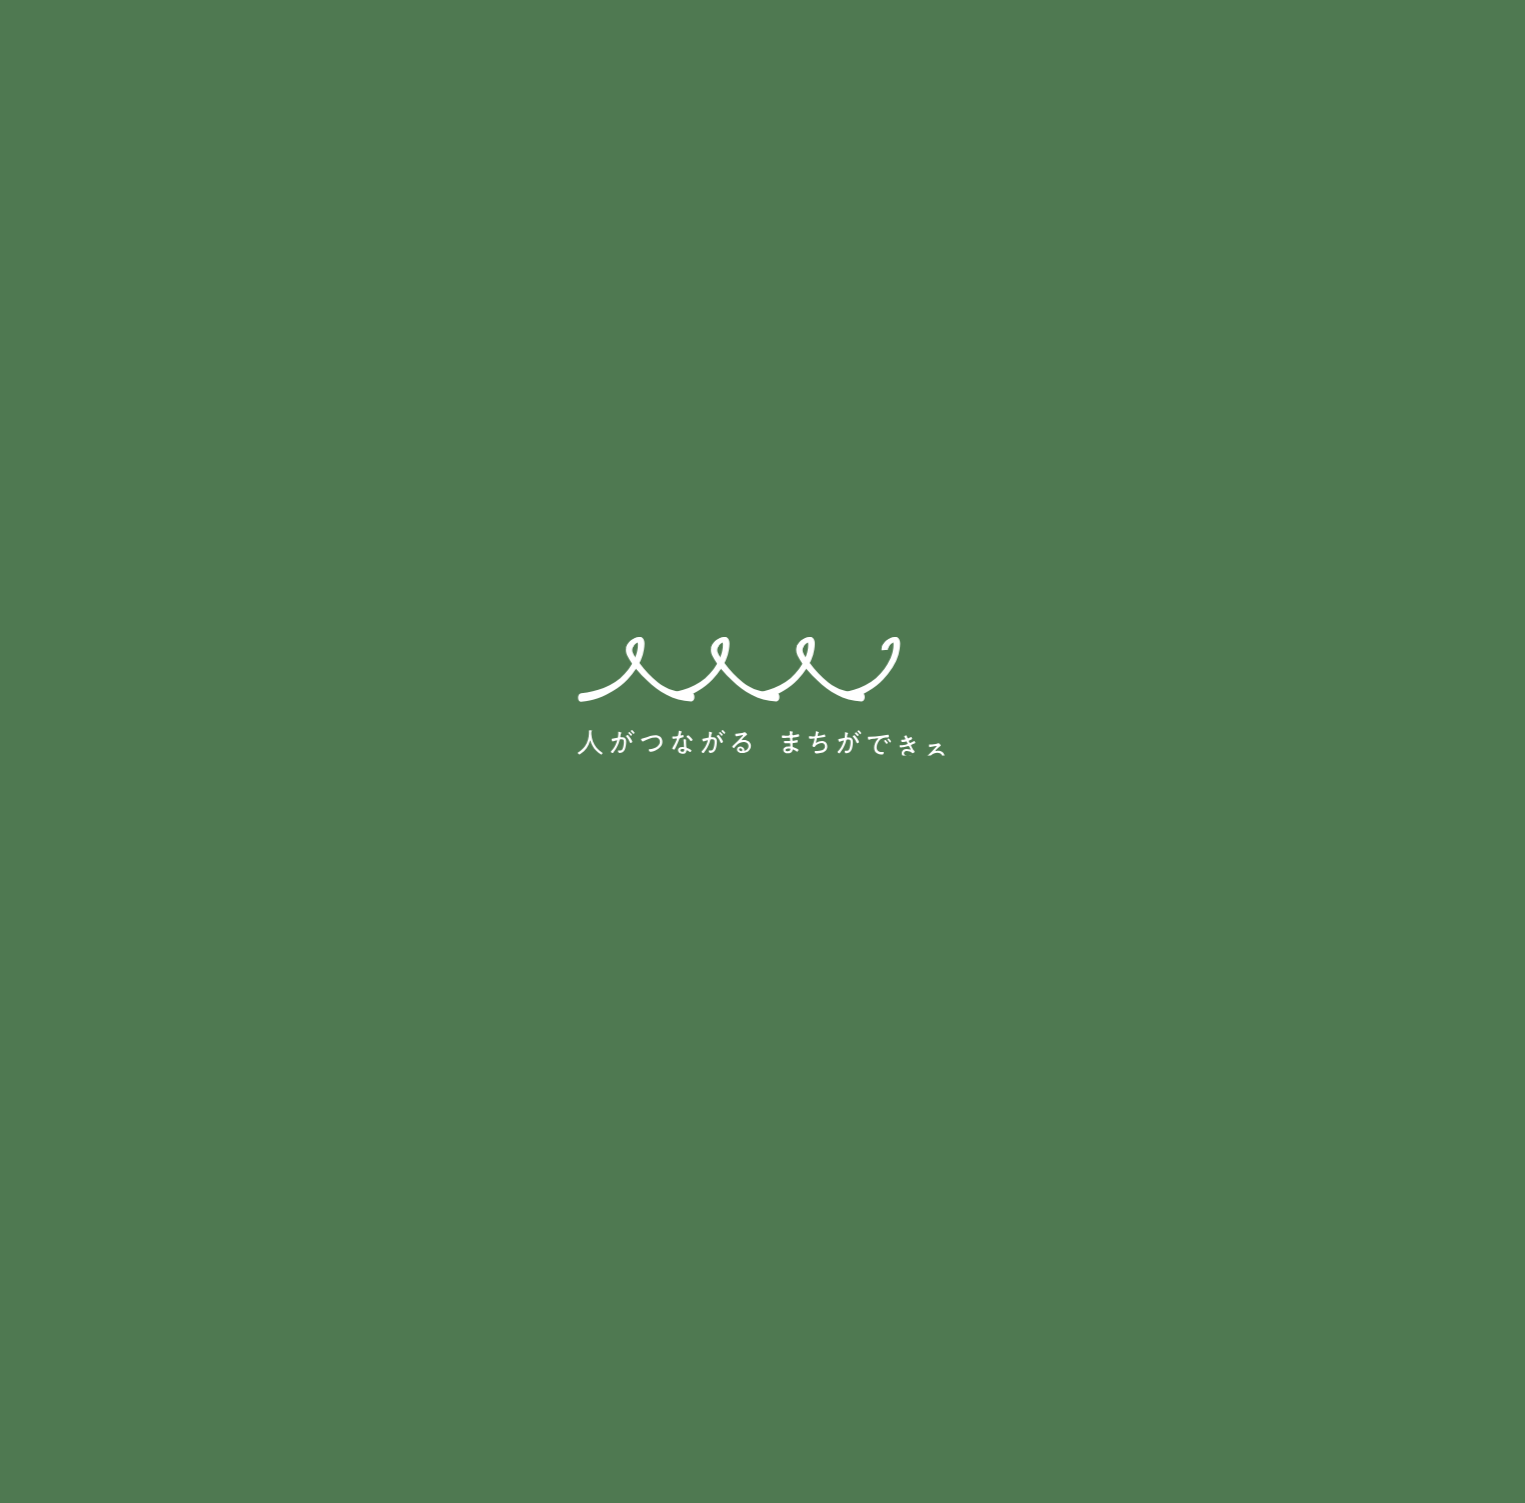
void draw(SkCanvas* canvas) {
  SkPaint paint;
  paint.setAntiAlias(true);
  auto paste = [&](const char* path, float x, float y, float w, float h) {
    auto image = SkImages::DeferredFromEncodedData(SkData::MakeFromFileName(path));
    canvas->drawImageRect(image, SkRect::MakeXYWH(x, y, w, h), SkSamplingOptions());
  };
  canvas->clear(0xff4f7951);
  paste("img/1.png", 577, 637, 368, 119);
}
